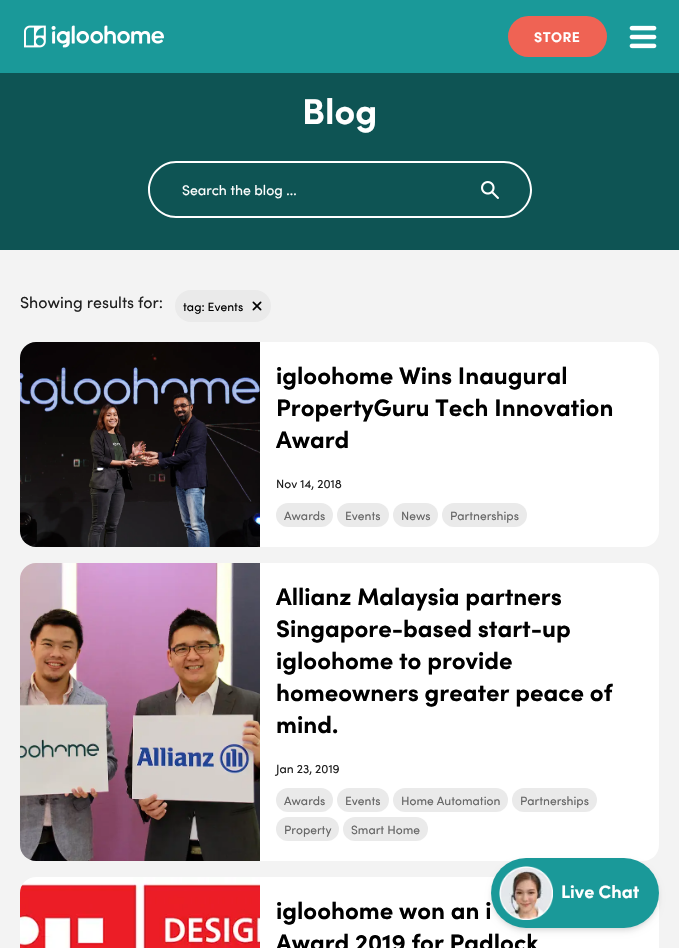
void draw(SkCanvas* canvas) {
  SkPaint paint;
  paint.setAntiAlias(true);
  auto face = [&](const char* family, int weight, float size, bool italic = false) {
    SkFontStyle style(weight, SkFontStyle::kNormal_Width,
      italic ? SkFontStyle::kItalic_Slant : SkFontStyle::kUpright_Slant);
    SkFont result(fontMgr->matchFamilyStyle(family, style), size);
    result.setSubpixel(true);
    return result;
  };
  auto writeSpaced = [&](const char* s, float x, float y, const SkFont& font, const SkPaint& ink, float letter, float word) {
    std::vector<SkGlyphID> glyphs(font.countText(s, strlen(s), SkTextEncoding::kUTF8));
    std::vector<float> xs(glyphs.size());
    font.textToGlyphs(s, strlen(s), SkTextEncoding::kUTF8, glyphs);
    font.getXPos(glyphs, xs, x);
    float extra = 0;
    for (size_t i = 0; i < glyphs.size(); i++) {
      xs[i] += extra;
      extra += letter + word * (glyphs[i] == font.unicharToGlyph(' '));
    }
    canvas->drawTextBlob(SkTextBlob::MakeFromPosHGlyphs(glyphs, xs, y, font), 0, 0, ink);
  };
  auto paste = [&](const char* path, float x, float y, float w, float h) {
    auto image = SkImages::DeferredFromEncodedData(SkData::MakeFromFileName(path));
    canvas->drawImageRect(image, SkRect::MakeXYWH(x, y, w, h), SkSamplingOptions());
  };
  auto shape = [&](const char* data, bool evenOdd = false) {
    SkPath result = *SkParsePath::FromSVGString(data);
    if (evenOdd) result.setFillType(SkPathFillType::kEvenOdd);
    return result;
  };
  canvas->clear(0xff0e5454);
  paint.setColor(0xff1a9999);
  canvas->drawRect(SkRect::MakeXYWH(0, 0, 679, 73), paint);
  paste("img/1.png", 24, 25, 140, 23);
  paint.setColor(0xffef6354);
  canvas->drawRoundRect(SkRect::MakeXYWH(508, 16, 99, 41), 20.5f, 20.5f, paint);
  paste("img/2.png", 629, 25, 28, 24);
  paint.setColor(0xffffffff);
  canvas->drawPath(shape("M176 161H452V218H176C161 218 148 205 148 190C148 174 161 161 176 161ZM176 163H452V216H176C162 216 150 204 150 190C150 175 162 163 176 163Z", true), paint);
  canvas->drawPath(shape("M450 161H504C519 161 532 174 532 190C532 205 519 218 504 218H450ZM450 163H504C518 163 530 175 530 190C530 204 518 216 504 216H450Z", true), paint);
  paste("img/3.png", 481, 181, 18, 18);
  paint.setColor(0xfff3f3f3);
  canvas->drawRect(SkRect::MakeXYWH(0, 250, 679, 698), paint);
  paint.setColor(0xffeaeaea);
  canvas->drawRoundRect(SkRect::MakeXYWH(175, 290, 96, 32), 16, 16, paint);
  paste("img/4.png", 252, 301, 10, 10);
  paste("img/5.png", 20, 342, 240, 205);
  paint.setColor(0xffffffff);
  canvas->drawPath(shape("M260 342H643C652 342 659 349 659 358V531C659 540 652 547 643 547H260Z"), paint);
  paint.setColor(0xffeaeaea);
  canvas->drawRoundRect(SkRect::MakeXYWH(276, 503, 57, 24), 12, 12, paint);
  canvas->drawRoundRect(SkRect::MakeXYWH(337, 503, 52, 24), 12, 12, paint);
  canvas->drawRoundRect(SkRect::MakeXYWH(393, 503, 45, 24), 12, 12, paint);
  canvas->drawRoundRect(SkRect::MakeXYWH(442, 503, 85, 24), 12, 12, paint);
  paste("img/6.png", 20, 563, 240, 298);
  paint.setColor(0xffffffff);
  canvas->drawPath(shape("M260 563H643C652 563 659 570 659 579V845C659 854 652 861 643 861H260Z"), paint);
  paint.setColor(0xffeaeaea);
  canvas->drawRoundRect(SkRect::MakeXYWH(276, 788, 57, 24), 12, 12, paint);
  canvas->drawRoundRect(SkRect::MakeXYWH(337, 788, 52, 24), 12, 12, paint);
  canvas->drawRoundRect(SkRect::MakeXYWH(393, 788, 115, 24), 12, 12, paint);
  canvas->drawRoundRect(SkRect::MakeXYWH(512, 788, 85, 24), 12, 12, paint);
  canvas->drawRoundRect(SkRect::MakeXYWH(276, 817, 63, 24), 12, 12, paint);
  canvas->drawRoundRect(SkRect::MakeXYWH(343, 817, 85, 24), 12, 12, paint);
  paste("img/7.png", 20, 877, 240, 71);
  paint.setColor(0xffffffff);
  canvas->drawPath(shape("M260 877H643C652 877 659 884 659 893V948C659 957 652 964 643 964H260Z"), paint);
  paint.setColor(0x1a000000);
  paint.setMaskFilter(SkMaskFilter::MakeBlur(kNormal_SkBlurStyle, 2));
  canvas->drawRoundRect(SkRect::MakeXYWH(493, 862, 164, 66), 33, 33, paint);
  paint.setMaskFilter(nullptr);
  paint.setMaskFilter(SkMaskFilter::MakeBlur(kNormal_SkBlurStyle, 3));
  canvas->drawRoundRect(SkRect::MakeXYWH(492, 863, 166, 68), 34, 34, paint);
  paint.setMaskFilter(nullptr);
  paint.setColor(0xff1a9999);
  canvas->drawRoundRect(SkRect::MakeXYWH(491, 858, 168, 70), 35, 35, paint);
  paste("img/8.png", 499, 866, 54, 54);
  auto f0 = face("Sofia", 700, 14);
  paint.setColor(0xffffffff);
  writeSpaced("STORE", 534, 42, f0, paint, 0.5f, 0);
  auto f1 = face("Sofia", 700, 36);
  canvas->drawString("Blog", 302, 124, f1, paint);
  auto f2 = face("Sofia", 400, 14);
  canvas->drawString("Search the blog ...", 182, 195, f2, paint);
  auto f3 = face("Sofia", 400, 16);
  paint.setColor(0xff1f1f1f);
  canvas->drawString("Showing results for:", 20, 308, f3, paint);
  auto f4 = face("Sofia", 400, 12);
  paint.setColor(0xff000000);
  canvas->drawString("tag: Events", 183, 311, f4, paint);
  auto f5 = face("Sofia", 700, 24);
  {
    const struct { const char* s; float x, y; } items[] = {
      {"igloohome Wins Inaugural", 276, 384},
      {"PropertyGuru Tech Innovation", 276, 416},
      {"Award", 276, 448},
    };
    for (auto [s, x, y] : items) {
      canvas->drawString(s, x, y, f5, paint);
    }
  }
  paint.setColor(0xff1f1f1f);
  canvas->drawString("Nov 14, 2018", 276, 488, f4, paint);
  paint.setColor(0xff666666);
  {
    const struct { const char* s; float x, y; } items[] = {
      {"Awards", 284, 520},
      {"Events", 345, 520},
      {"News", 401, 520},
      {"Partnerships", 450, 520},
    };
    for (auto [s, x, y] : items) {
      canvas->drawString(s, x, y, f4, paint);
    }
  }
  paint.setColor(0xff000000);
  {
    const struct { const char* s; float x, y; } items[] = {
      {"Allianz Malaysia partners", 276, 605},
      {"Singapore-based start-up", 276, 637},
      {"igloohome to provide", 276, 669},
      {"homeowners greater peace of", 276, 701},
      {"mind.", 276, 733},
    };
    for (auto [s, x, y] : items) {
      canvas->drawString(s, x, y, f5, paint);
    }
  }
  paint.setColor(0xff1f1f1f);
  canvas->drawString("Jan 23, 2019", 276, 773, f4, paint);
  paint.setColor(0xff666666);
  {
    const struct { const char* s; float x, y; } items[] = {
      {"Awards", 284, 805},
      {"Events", 345, 805},
      {"Home Automation", 401, 805},
      {"Partnerships", 520, 805},
      {"Property", 284, 834},
      {"Smart Home", 351, 834},
    };
    for (auto [s, x, y] : items) {
      canvas->drawString(s, x, y, f4, paint);
    }
  }
  paint.setColor(0xff000000);
  canvas->drawString("igloohome won an i", 276, 919, f5, paint);
  canvas->drawString("Award 2019 for Padlock", 276, 951, f5, paint);
  auto f6 = face("Sofia", 700, 18);
  paint.setColor(0xffffffff);
  canvas->drawString("Live Chat", 561, 898, f6, paint);
}
